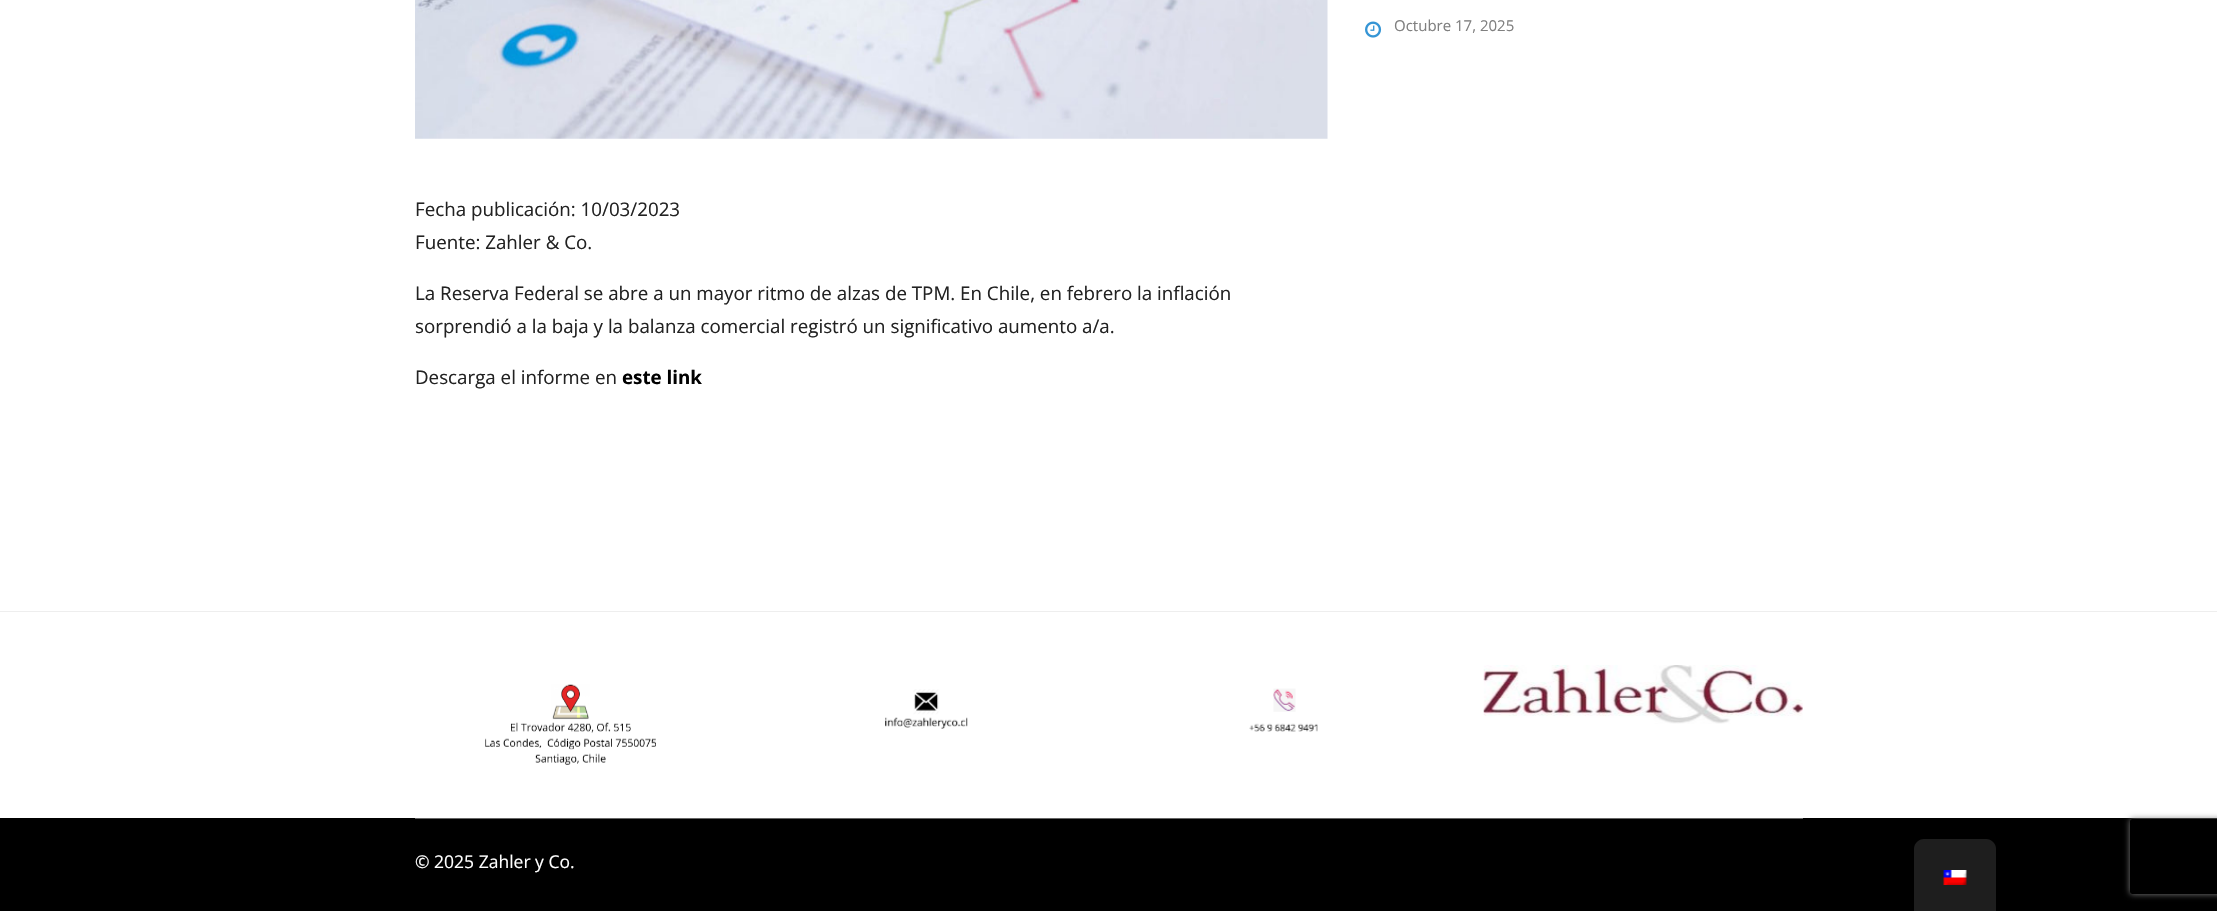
void draw(SkCanvas* canvas) {
  SkPaint paint;
  paint.setAntiAlias(true);
  auto face = [&](const char* family, int weight, float size, bool italic = false) {
    SkFontStyle style(weight, SkFontStyle::kNormal_Width,
      italic ? SkFontStyle::kItalic_Slant : SkFontStyle::kUpright_Slant);
    SkFont result(fontMgr->matchFamilyStyle(family, style), size);
    result.setSubpixel(true);
    return result;
  };
  auto paste = [&](const char* path, float x, float y, float w, float h) {
    auto image = SkImages::DeferredFromEncodedData(SkData::MakeFromFileName(path));
    canvas->drawImageRect(image, SkRect::MakeXYWH(x, y, w, h), SkSamplingOptions());
  };
  auto shape = [&](const char* data, bool evenOdd = false) {
    SkPath result = *SkParsePath::FromSVGString(data);
    if (evenOdd) result.setFillType(SkPathFillType::kEvenOdd);
    return result;
  };
  canvas->clear(0xffffffff);
  paste("img/1.png", 1365, 21, 17, 17);
  paste("img/2.png", 415, 0, 913, 139);
  paint.setColor(0xffeeeeee);
  canvas->drawRect(SkRect::MakeXYWH(0, 611, 2217, 1), paint);
  paste("img/3.png", 485, 684, 171, 81);
  paste("img/4.png", 885, 689, 83, 40);
  paste("img/5.png", 1249, 688, 69, 44);
  paste("img/6.png", 1483, 665, 320, 59);
  paint.setColor(0xff000000);
  canvas->drawRect(SkRect::MakeXYWH(0, 818, 2217, 93), paint);
  paint.setColor(0xff666666);
  canvas->drawRect(SkRect::MakeXYWH(415, 818, 1388, 1), paint);
  paint.setColor(0xff1e1e1e);
  canvas->drawPath(shape("M1924 839H1986C1991.5 839 1996 843.5 1996 849V911H1914V849C1914 843.5 1918.5 839 1924 839Z"), paint);
  paste("img/7.png", 1943, 870, 24, 15);
  canvas->save();
  canvas->clipPath(shape("M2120 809H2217V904H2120ZM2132.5 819H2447.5C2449 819 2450 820 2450 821.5V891.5C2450 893 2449 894 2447.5 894H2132.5C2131 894 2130 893 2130 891.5V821.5C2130 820 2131 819 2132.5 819Z", true), true);
  paint.setColor(0xff808080);
  paint.setMaskFilter(SkMaskFilter::MakeBlur(kNormal_SkBlurStyle, 3));
  canvas->drawRoundRect(SkRect::MakeXYWH(2130, 819, 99, 75), 2.5f, 2.5f, paint);
  paint.setMaskFilter(nullptr);
  canvas->restore();
  auto f0 = face("Open Sans", 400, 15);
  canvas->drawString("Octubre 17, 2025", 1394, 31, f0, paint);
  auto f1 = face("Open Sans", 400, 18.75f);
  paint.setColor(0xff222222);
  {
    const struct { const char* s; float x, y; } items[] = {
      {"Fecha publicación: 10/03/2023", 415, 216},
      {"Fuente: Zahler & Co.", 415, 249},
      {"La Reserva Federal se abre a un mayor ritmo de alzas de TPM. En Chile, en febrero la inflación", 415, 300},
      {"sorprendió a la baja y la balanza comercial registró un significativo aumento a/a.", 415, 333},
      {"Descarga el informe en", 415, 384},
    };
    for (auto [s, x, y] : items) {
      canvas->drawString(s, x, y, f1, paint);
    }
  }
  auto f2 = face("Open Sans", 700, 18.75f);
  paint.setColor(0xff000000);
  canvas->drawString("este link", 622, 384, f2, paint);
  auto f3 = face("Open Sans", 400, 17.5f);
  paint.setColor(0xffffffff);
  canvas->drawString("© 2025 Zahler y Co.", 415, 868, f3, paint);
}
